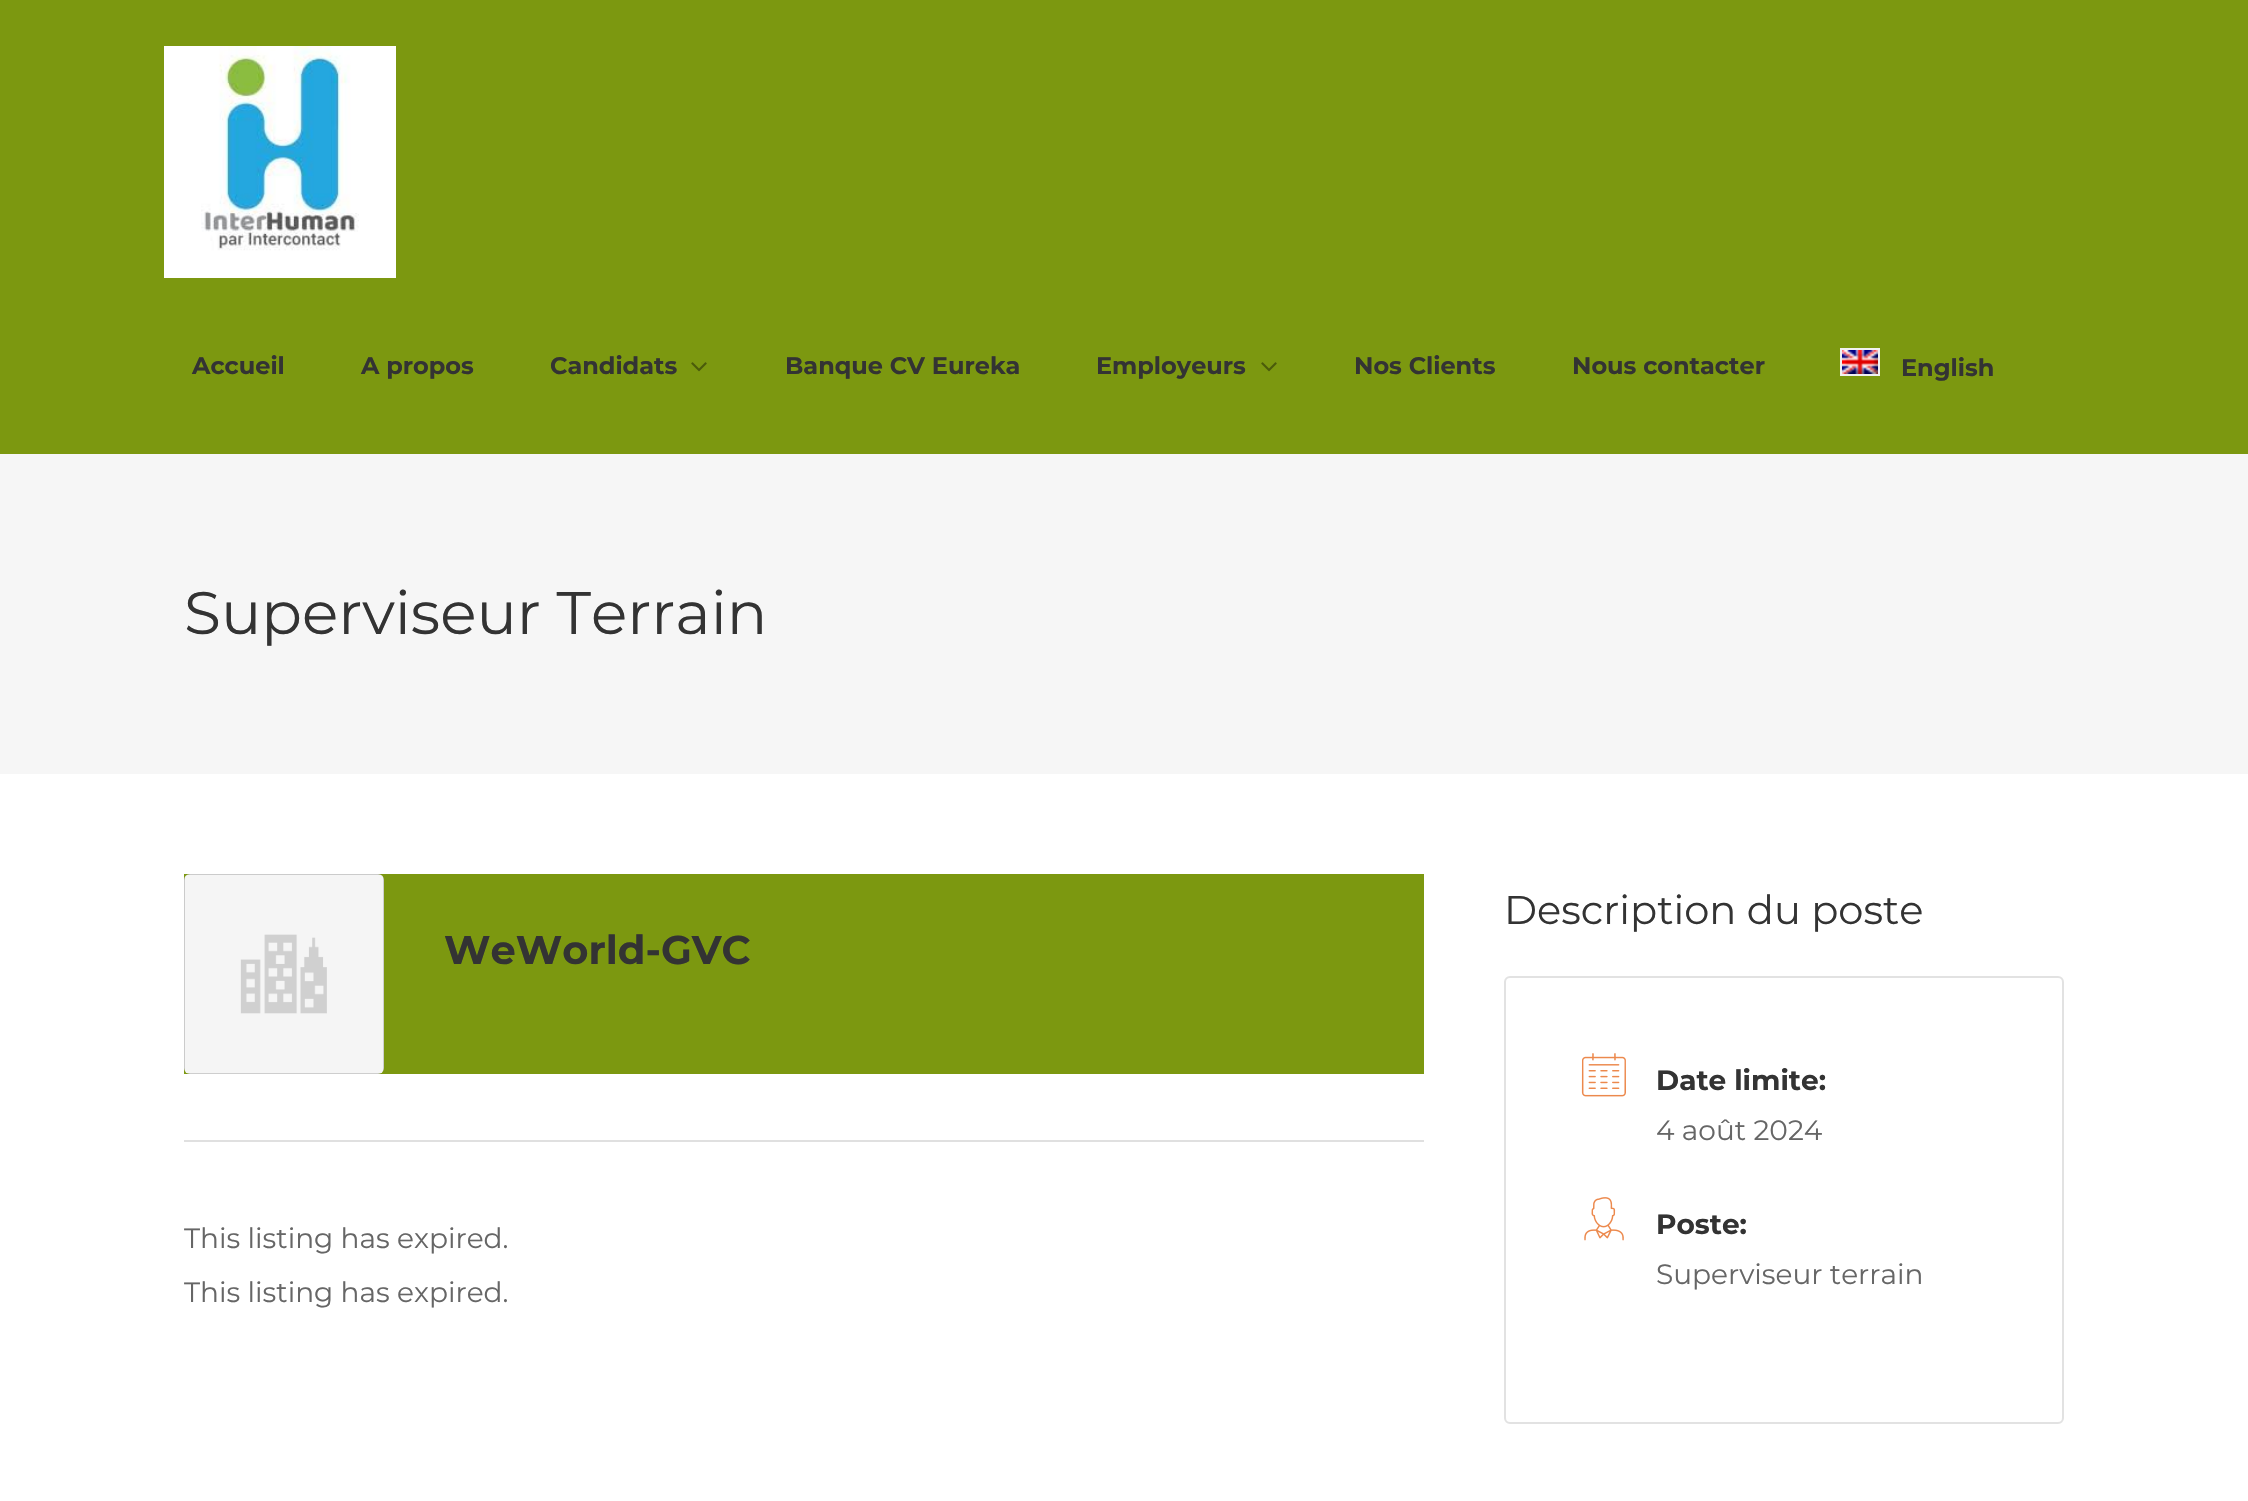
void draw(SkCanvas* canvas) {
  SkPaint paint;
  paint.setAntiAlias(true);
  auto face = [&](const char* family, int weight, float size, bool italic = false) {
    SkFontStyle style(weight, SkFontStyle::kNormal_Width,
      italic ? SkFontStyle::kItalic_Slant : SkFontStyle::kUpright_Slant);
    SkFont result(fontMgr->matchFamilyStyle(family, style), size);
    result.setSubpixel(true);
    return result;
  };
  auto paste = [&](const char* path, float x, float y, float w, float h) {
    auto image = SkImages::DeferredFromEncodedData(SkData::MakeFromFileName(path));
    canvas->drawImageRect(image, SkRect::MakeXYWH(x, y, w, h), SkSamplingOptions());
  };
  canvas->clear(0xffffffff);
  paint.setColor(0xff7c9810);
  canvas->drawRect(SkRect::MakeXYWH(0, 0, 2248, 454), paint);
  paste("img/1.png", 164, 46, 232, 232);
  paste("img/2.png", 691, 362, 16, 10);
  paste("img/2.png", 1261, 362, 16, 10);
  paint.setStroke(true);
  paint.setStrokeWidth(2);
  paint.setColor(0xfff1f1f1);
  canvas->drawRect(SkRect::MakeXYWH(1841, 349, 38, 26), paint);
  paste("img/3.png", 1842, 350, 36, 24);
  paint.setStroke(false);
  {
    const struct { float x, y, w, h; SkColor color; } items[] = {
      {0, 454, 2248, 320, 0xfff6f6f6},
      {184, 1140, 1240, 2, 0xffe0e0e0},
      {184, 874, 1240, 200, 0xff7c9810},
    };
    for (auto [x, y, w, h, color] : items) {
      paint.setColor(color);
      canvas->drawRect(SkRect::MakeXYWH(x, y, w, h), paint);
    }
  }
  paste("img/4.png", 184, 874, 200, 200);
  paint.setStroke(true);
  paint.setColor(0xffe2e2e2);
  canvas->drawRoundRect(SkRect::MakeXYWH(1505, 977, 558, 446), 5, 5, paint);
  paste("img/5.png", 1581, 1053, 45, 44);
  paste("img/6.png", 1584, 1197, 40, 44);
  auto f0 = face("Montserrat", 700, 24);
  paint.setStroke(false);
  paint.setColor(0xff333333);
  {
    const struct { const char* s; float x, y; } items[] = {
      {"Accueil", 192, 374},
      {"A propos", 361, 374},
      {"Candidats", 550, 374},
      {"Banque CV Eureka", 785, 374},
      {"Employeurs", 1096, 374},
      {"Nos Clients", 1354, 374},
      {"Nous contacter", 1572, 374},
      {"English", 1901, 376},
    };
    for (auto [s, x, y] : items) {
      canvas->drawString(s, x, y, f0, paint);
    }
  }
  auto f1 = face("Montserrat", 100, 60);
  canvas->drawString("Superviseur Terrain", 184, 634, f1, paint);
  auto f2 = face("Montserrat", 700, 40);
  canvas->drawString("WeWorld-GVC", 444, 964, f2, paint);
  auto f3 = face("Montserrat", 100, 28);
  paint.setColor(0xff666666);
  canvas->drawString("This listing has expired.", 184, 1248, f3, paint);
  canvas->drawString("This listing has expired.", 184, 1302, f3, paint);
  auto f4 = face("Montserrat", 100, 40);
  paint.setColor(0xff333333);
  canvas->drawString("Description du poste", 1504, 924, f4, paint);
  auto f5 = face("Montserrat", 700, 28);
  canvas->drawString("Date limite:", 1656, 1090, f5, paint);
  paint.setColor(0xff666666);
  canvas->drawString("4 août 2024", 1656, 1140, f3, paint);
  paint.setColor(0xff333333);
  canvas->drawString("Poste:", 1656, 1234, f5, paint);
  paint.setColor(0xff666666);
  canvas->drawString("Superviseur terrain", 1656, 1284, f3, paint);
}
